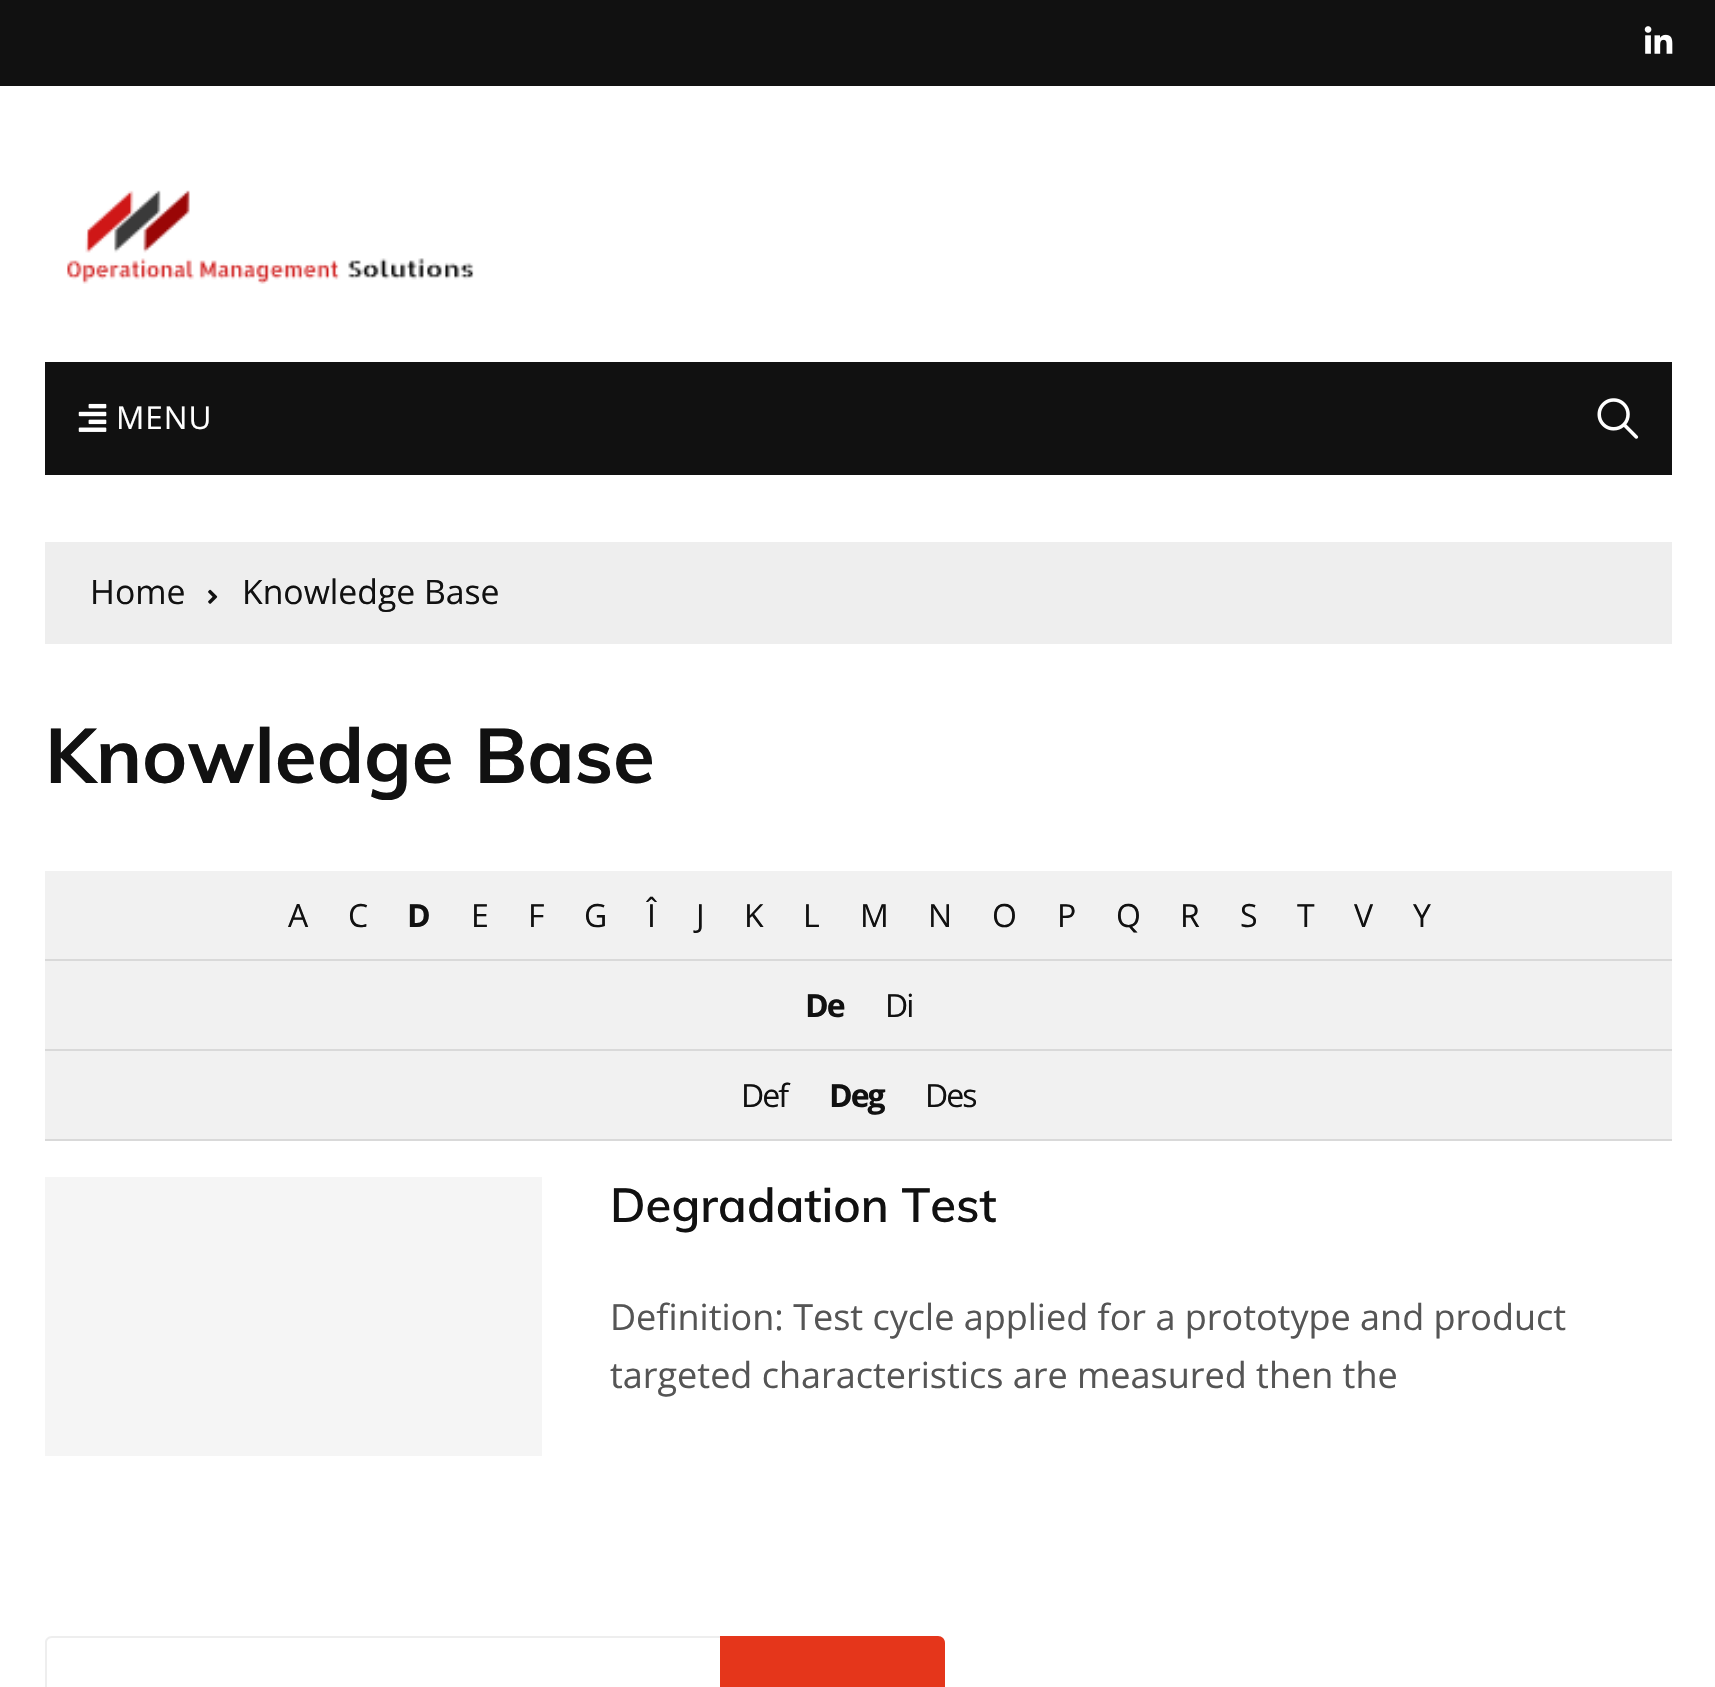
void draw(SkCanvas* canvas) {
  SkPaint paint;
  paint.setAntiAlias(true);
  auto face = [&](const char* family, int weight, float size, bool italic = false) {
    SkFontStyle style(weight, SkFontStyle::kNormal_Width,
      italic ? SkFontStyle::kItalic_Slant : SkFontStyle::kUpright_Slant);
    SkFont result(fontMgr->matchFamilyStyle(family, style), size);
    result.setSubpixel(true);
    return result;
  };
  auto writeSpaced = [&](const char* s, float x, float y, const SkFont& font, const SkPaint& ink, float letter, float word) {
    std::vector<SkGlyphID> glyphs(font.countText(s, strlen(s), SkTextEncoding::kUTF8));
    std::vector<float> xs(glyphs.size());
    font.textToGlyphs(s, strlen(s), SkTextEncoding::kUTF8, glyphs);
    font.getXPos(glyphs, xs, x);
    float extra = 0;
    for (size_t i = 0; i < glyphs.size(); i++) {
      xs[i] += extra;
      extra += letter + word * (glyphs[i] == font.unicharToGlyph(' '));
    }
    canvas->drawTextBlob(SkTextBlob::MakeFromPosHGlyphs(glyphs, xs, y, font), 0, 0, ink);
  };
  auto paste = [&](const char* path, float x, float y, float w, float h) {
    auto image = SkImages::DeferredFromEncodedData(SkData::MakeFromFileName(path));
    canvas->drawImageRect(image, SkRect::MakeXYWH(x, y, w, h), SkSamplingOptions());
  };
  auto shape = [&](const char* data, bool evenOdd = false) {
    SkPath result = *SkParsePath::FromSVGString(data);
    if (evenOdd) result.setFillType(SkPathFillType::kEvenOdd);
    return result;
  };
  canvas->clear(0xffffffff);
  paint.setColor(0xff111111);
  canvas->drawRect(SkRect::MakeXYWH(0, 0, 1715, 86), paint);
  paste("img/1.png", 1644, 26, 29, 28);
  paste("img/2.png", 67, 190, 407, 94);
  canvas->drawRect(SkRect::MakeXYWH(45, 362, 1627, 113), paint);
  paste("img/3.png", 78, 403, 29, 29);
  paste("img/4.png", 1597, 398, 42, 41);
  paint.setColor(0xffeeeeee);
  canvas->drawRect(SkRect::MakeXYWH(45, 542, 1627, 102), paint);
  paste("img/5.png", 208, 589, 10, 15);
  {
    const struct { float x, y, w, h; SkColor color; } items[] = {
      {45, 871, 1627, 88, 0xfff1f1f1},
      {45, 959, 1627, 2, 0xffd9d9d9},
      {45, 961, 1627, 88, 0xfff1f1f1},
      {45, 1049, 1627, 2, 0xffd9d9d9},
      {45, 1051, 1627, 88, 0xfff1f1f1},
      {45, 1139, 1627, 2, 0xffd9d9d9},
      {45, 1177, 497, 279, 0xfff5f5f5},
    };
    for (auto [x, y, w, h, color] : items) {
      paint.setColor(color);
      canvas->drawRect(SkRect::MakeXYWH(x, y, w, h), paint);
    }
  }
  paint.setColor(0xffeeeeee);
  canvas->drawPath(shape("M52 1636H720V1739H52C48 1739 45 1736 45 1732V1642C45 1639 48 1636 52 1636ZM52 1638H720V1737H52C49 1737 47 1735 47 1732V1642C47 1640 49 1638 52 1638Z", true), paint);
  paint.setColor(0xffe5361b);
  canvas->drawPath(shape("M720 1636H938C942 1636 945 1639 945 1643V1687C945 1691 942 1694 938 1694H720Z"), paint);
  auto f0 = face("Open Sans", 400, 31.5f);
  paint.setColor(0xffffffff);
  writeSpaced("MENU", 116, 429, f0, paint, 1, 0);
  auto f1 = face("Open Sans", 400, 33.75f);
  paint.setColor(0xff111111);
  canvas->drawString("Home", 90, 604, f1, paint);
  canvas->drawString("Knowledge Base", 242, 604, f1, paint);
  auto f2 = face("Muli", 700, 76.5f);
  canvas->drawString("Knowledge Base", 45, 783, f2, paint);
  auto f3 = face("Open Sans", 400, 32);
  writeSpaced("A", 288, 927, f3, paint, -2, 0);
  writeSpaced("C", 348, 927, f3, paint, -2, 0);
  auto f4 = face("Open Sans", 700, 32);
  writeSpaced("D", 407, 927, f4, paint, -2, 0);
  {
    const struct { const char* s; float x, y; } items[] = {
      {"E", 471, 927},
      {"F", 528, 927},
      {"G", 584, 927},
      {"Î", 647, 927},
      {"J", 696, 927},
      {"K", 744, 927},
      {"L", 803, 927},
      {"M", 860, 927},
      {"N", 928, 927},
      {"O", 992, 927},
      {"P", 1057, 927},
      {"Q", 1116, 927},
      {"R", 1180, 927},
      {"S", 1240, 927},
      {"T", 1297, 927},
      {"V", 1354, 927},
      {"Y", 1413, 927},
    };
    for (auto [s, x, y] : items) {
      writeSpaced(s, x, y, f3, paint, -2, 0);
    }
  }
  writeSpaced("De", 805, 1017, f4, paint, -2, 0);
  writeSpaced("Di", 885, 1017, f3, paint, -2, 0);
  writeSpaced("Def", 741, 1107, f3, paint, -2, 0);
  writeSpaced("Deg", 829, 1107, f4, paint, -2, 0);
  writeSpaced("Des", 925, 1107, f3, paint, -2, 0);
  auto f5 = face("Muli", 600, 47.25f);
  canvas->drawString("Degradation Test", 610, 1222, f5, paint);
  auto f6 = face("Open Sans", 400, 36);
  paint.setColor(0xff555555);
  canvas->drawString("Definition: Test cycle applied for a prototype and product", 610, 1330, f6, paint);
  canvas->drawString("targeted characteristics are measured then the", 610, 1388, f6, paint);
}
